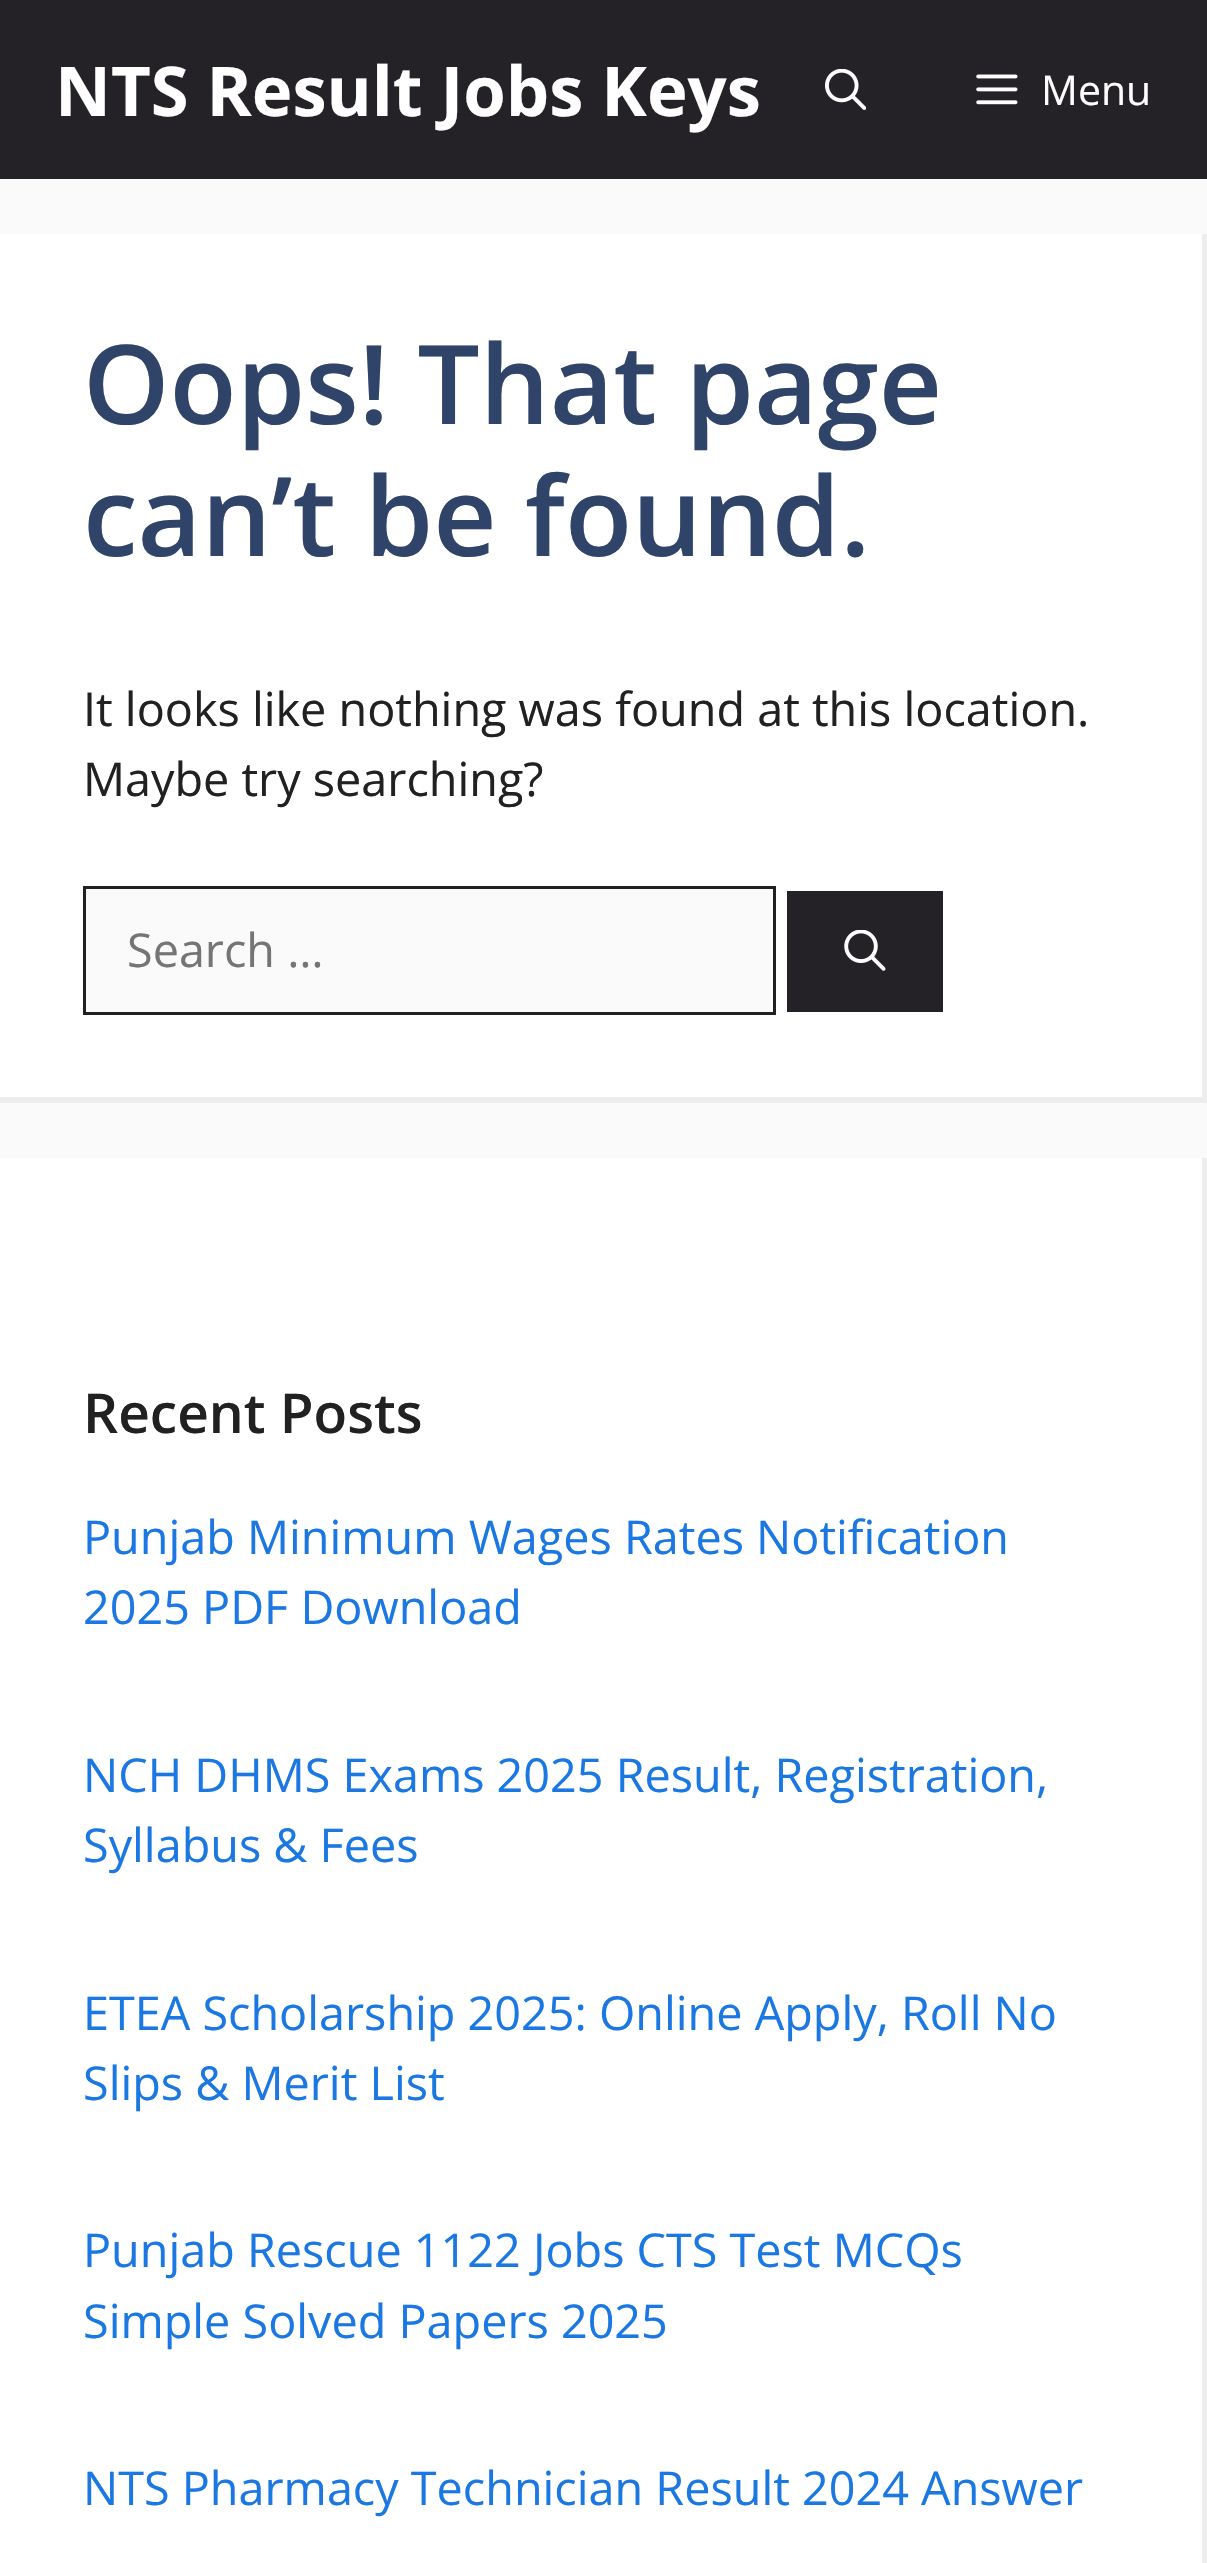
void draw(SkCanvas* canvas) {
  SkPaint paint;
  paint.setAntiAlias(true);
  auto face = [&](const char* family, int weight, float size, bool italic = false) {
    SkFontStyle style(weight, SkFontStyle::kNormal_Width,
      italic ? SkFontStyle::kItalic_Slant : SkFontStyle::kUpright_Slant);
    SkFont result(fontMgr->matchFamilyStyle(family, style), size);
    result.setSubpixel(true);
    return result;
  };
  auto paste = [&](const char* path, float x, float y, float w, float h) {
    auto image = SkImages::DeferredFromEncodedData(SkData::MakeFromFileName(path));
    canvas->drawImageRect(image, SkRect::MakeXYWH(x, y, w, h), SkSamplingOptions());
  };
  auto shape = [&](const char* data, bool evenOdd = false) {
    SkPath result = *SkParsePath::FromSVGString(data);
    if (evenOdd) result.setFillType(SkPathFillType::kEvenOdd);
    return result;
  };
  canvas->clear(0xfffafafa);
  paint.setColor(0xff242226);
  canvas->drawRect(SkRect::MakeXYWH(0, 0, 1207, 179), paint);
  paste("img/1.png", 825, 69, 41, 41);
  paste("img/2.png", 976, 74, 42, 31);
  paint.setColor(0xffffffff);
  canvas->drawRect(SkRect::MakeXYWH(0, 234, 1207, 869), paint);
  paint.setColor(0xffededed);
  canvas->drawPath(shape("M1207 234V1103L1202 1097V234Z"), paint);
  paint.setColor(0x12000000);
  canvas->drawPath(shape("M1207 1103H0V1097H1202Z"), paint);
  paint.setColor(0xfffafafa);
  canvas->drawRect(SkRect::MakeXYWH(84.5f, 887.5f, 690, 126), paint);
  paint.setStroke(true);
  paint.setStrokeWidth(3);
  paint.setColor(0xff212121);
  canvas->drawRect(SkRect::MakeXYWH(84.5f, 887.5f, 690, 126), paint);
  paint.setStroke(false);
  paint.setColor(0xff242226);
  canvas->drawRect(SkRect::MakeXYWH(787, 891, 156, 121), paint);
  paste("img/3.png", 844, 930, 42, 41);
  paint.setColor(0xffffffff);
  canvas->drawRect(SkRect::MakeXYWH(0, 1158, 1202, 1405), paint);
  paint.setColor(0xffededed);
  canvas->drawPath(shape("M1207 1158V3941L1202 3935V1158Z"), paint);
  auto f0 = face("Open Sans", 700, 68.75f);
  paint.setColor(0xffffffff);
  canvas->drawString("NTS Result Jobs Keys", 55, 116, f0, paint);
  auto f1 = face("Open Sans", 400, 41);
  canvas->drawString("Menu", 1041, 105, f1, paint);
  auto f2 = face("Open Sans", 600, 110);
  paint.setColor(0xff2f4468);
  canvas->drawString("Oops! That page", 83, 424, f2, paint);
  canvas->drawString("can’t be found.", 83, 556, f2, paint);
  auto f3 = face("Open Sans", 400, 46.75f);
  paint.setColor(0xff212121);
  canvas->drawString("It looks like nothing was found at this location.", 83, 726, f3, paint);
  canvas->drawString("Maybe try searching?", 83, 796, f3, paint);
  paint.setColor(0xff757575);
  canvas->drawString("Search …", 127, 967, f3, paint);
  auto f4 = face("Open Sans", 600, 55);
  paint.setColor(0xff212121);
  canvas->drawString("Recent Posts", 83, 1433, f4, paint);
  paint.setColor(0xff1b78e2);
  {
    const struct { const char* s; float x, y; } items[] = {
      {"Punjab Minimum Wages Rates Notification", 83, 1554},
      {"2025 PDF Download", 83, 1624},
      {"NCH DHMS Exams 2025 Result, Registration,", 83, 1792},
      {"Syllabus & Fees", 83, 1862},
      {"ETEA Scholarship 2025: Online Apply, Roll No", 83, 2030},
      {"Slips & Merit List", 83, 2100},
      {"Punjab Rescue 1122 Jobs CTS Test MCQs", 83, 2267},
      {"Simple Solved Papers 2025", 83, 2338},
      {"NTS Pharmacy Technician Result 2024 Answer", 83, 2505},
    };
    for (auto [s, x, y] : items) {
      canvas->drawString(s, x, y, f3, paint);
    }
  }
}
